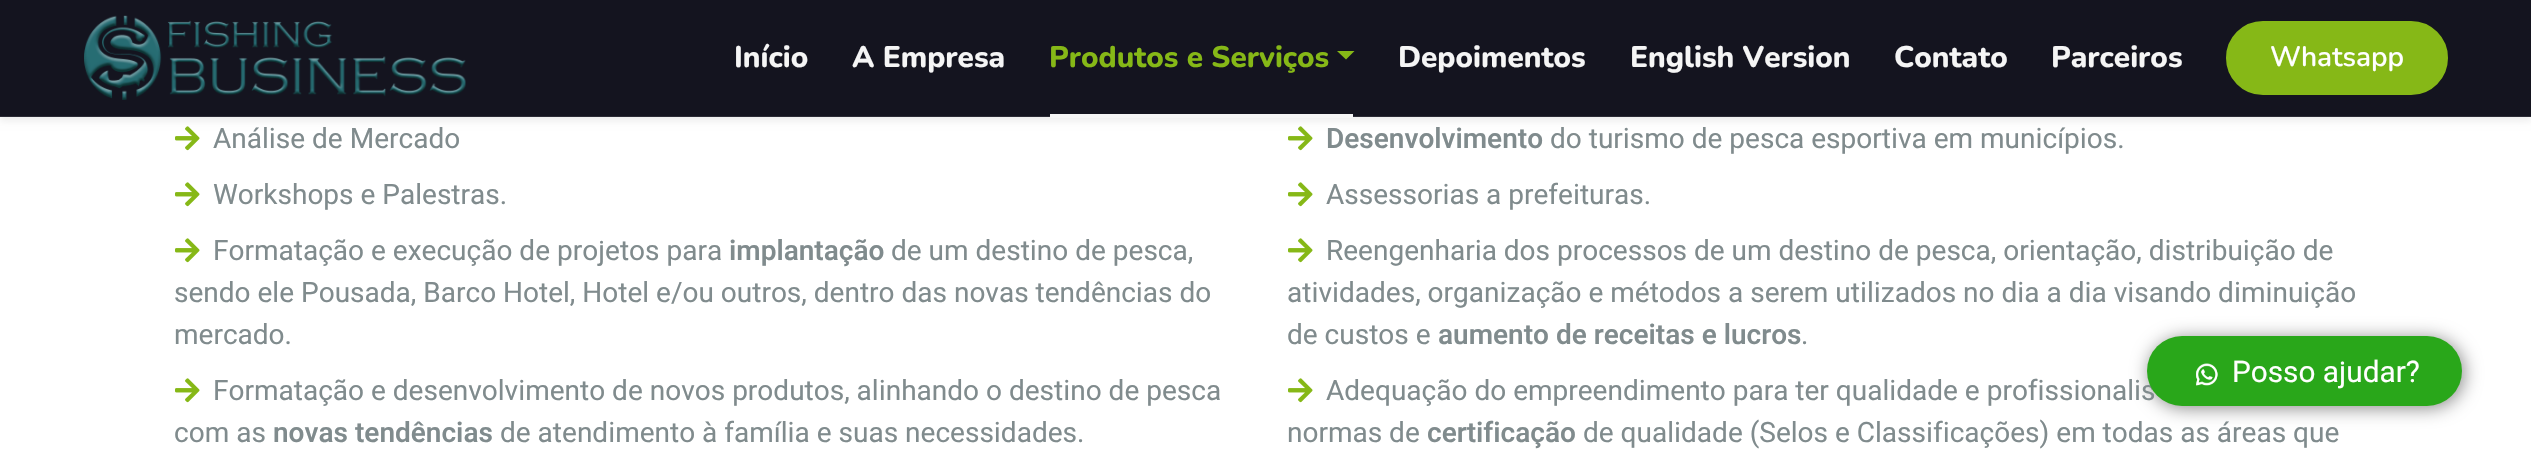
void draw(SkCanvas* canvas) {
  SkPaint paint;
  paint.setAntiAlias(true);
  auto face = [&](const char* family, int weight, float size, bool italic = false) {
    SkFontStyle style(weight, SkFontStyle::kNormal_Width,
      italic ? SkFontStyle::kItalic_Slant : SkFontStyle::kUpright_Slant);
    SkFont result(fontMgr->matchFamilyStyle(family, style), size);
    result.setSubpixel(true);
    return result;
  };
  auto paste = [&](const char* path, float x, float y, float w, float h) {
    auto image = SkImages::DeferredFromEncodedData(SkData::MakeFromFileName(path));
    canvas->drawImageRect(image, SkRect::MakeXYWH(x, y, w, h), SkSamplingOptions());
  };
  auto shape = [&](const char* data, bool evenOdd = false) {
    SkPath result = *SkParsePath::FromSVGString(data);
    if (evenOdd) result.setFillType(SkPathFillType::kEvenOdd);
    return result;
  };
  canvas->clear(0xffffffff);
  paste("img/2.png", 175, 126, 25, 25);
  paste("img/2.png", 1288, 126, 25, 25);
  paint.setColor(0x12000000);
  paint.setMaskFilter(SkMaskFilter::MakeBlur(kNormal_SkBlurStyle, 3.5f));
  canvas->drawRect(SkRect::MakeXYWH(0, 4, 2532, 117), paint);
  paint.setMaskFilter(nullptr);
  paint.setColor(0xff14141f);
  canvas->drawRect(SkRect::MakeXYWH(0, 0, 2531, 117), paint);
  paint.setColor(0x1affffff);
  canvas->drawRect(SkRect::MakeXYWH(0, 116, 2531, 1), paint);
  paste("img/1.png", 84, 15, 382, 85);
  paint.setColor(0xff86b817);
  canvas->drawPath(shape("M1337 51H1354.5L1346 59.5Z"), paint);
  paint.setColor(0xfff5f5f5);
  canvas->drawRect(SkRect::MakeXYWH(1050, 114, 303, 4), paint);
  paint.setColor(0xff86b817);
  canvas->drawRoundRect(SkRect::MakeXYWH(2227, 22, 220, 72), 36, 36, paint);
  paint.setStroke(true);
  paint.setStrokeWidth(2);
  canvas->drawRoundRect(SkRect::MakeXYWH(2227, 22, 220, 72), 36, 36, paint);
  paste("img/2.png", 175, 182, 25, 25);
  paste("img/2.png", 1288, 182, 25, 25);
  paste("img/2.png", 175, 238, 25, 25);
  paste("img/2.png", 1288, 238, 25, 25);
  paste("img/2.png", 175, 378, 25, 25);
  paste("img/2.png", 1288, 378, 25, 25);
  paint.setStroke(false);
  paint.setColor(0xff888888);
  paint.setMaskFilter(SkMaskFilter::MakeBlur(kNormal_SkBlurStyle, 9));
  canvas->drawRoundRect(SkRect::MakeXYWH(2149, 338, 315, 70), 35, 35, paint);
  paint.setMaskFilter(nullptr);
  auto f0 = face("Nunito", 800, 29.75f);
  paint.setColor(0xfff5f5f5);
  canvas->drawString("Início", 734, 67, f0, paint);
  canvas->drawString("A Empresa", 852, 67, f0, paint);
  paint.setColor(0xff86b817);
  canvas->drawString("Produtos e Serviços", 1049, 67, f0, paint);
  paint.setColor(0xfff5f5f5);
  {
    const struct { const char* s; float x, y; } items[] = {
      {"Depoimentos", 1398, 67},
      {"English Version", 1630, 67},
      {"Contato", 1894, 67},
      {"Parceiros", 2051, 67},
    };
    for (auto [s, x, y] : items) {
      canvas->drawString(s, x, y, f0, paint);
    }
  }
  auto f1 = face("Nunito", 600, 28);
  paint.setColor(0xffffffff);
  canvas->drawString("Whatsapp", 2270, 66, f1, paint);
  auto f2 = face("Heebo", 400, 28);
  paint.setColor(0xff808b8d);
  canvas->drawString("Análise de Mercado", 213, 148, f2, paint);
  auto f3 = face("Heebo", 600, 28);
  canvas->drawString("Desenvolvimento", 1326, 148, f3, paint);
  {
    const struct { const char* s; float x, y; } items[] = {
      {"do turismo de pesca esportiva em municípios.", 1550, 148},
      {"Workshops e Palestras.", 213, 204},
      {"Assessorias a prefeituras.", 1326, 204},
      {"Formatação e execução de projetos para", 213, 260},
    };
    for (auto [s, x, y] : items) {
      canvas->drawString(s, x, y, f2, paint);
    }
  }
  canvas->drawString("implantação", 729, 260, f3, paint);
  {
    const struct { const char* s; float x, y; } items[] = {
      {"de um destino de pesca,", 891, 260},
      {"sendo ele Pousada, Barco Hotel, Hotel e/ou outros, dentro das novas tendências do", 174, 302},
      {"mercado.", 174, 344},
      {"Reengenharia dos processos de um destino de pesca, orientação, distribuição de", 1326, 260},
      {"atividades, organização e métodos a serem utilizados no dia a dia visando diminuição", 1287, 302},
      {"de custos e", 1287, 344},
    };
    for (auto [s, x, y] : items) {
      canvas->drawString(s, x, y, f2, paint);
    }
  }
  canvas->drawString("aumento de receitas e lucros", 1438, 344, f3, paint);
  {
    const struct { const char* s; float x, y; } items[] = {
      {".", 1801, 344},
      {"Formatação e desenvolvimento de novos produtos, alinhando o destino de pesca", 213, 400},
      {"com as", 174, 442},
    };
    for (auto [s, x, y] : items) {
      canvas->drawString(s, x, y, f2, paint);
    }
  }
  canvas->drawString("novas tendências", 273, 442, f3, paint);
  {
    const struct { const char* s; float x, y; } items[] = {
      {"de atendimento à família e suas necessidades.", 500, 442},
      {"Adequação do empreendimento para ter qualidade e profissionalis", 1326, 400},
      {"normas de", 1287, 442},
    };
    for (auto [s, x, y] : items) {
      canvas->drawString(s, x, y, f2, paint);
    }
  }
  canvas->drawString("certificação", 1427, 442, f3, paint);
  canvas->drawString("de qualidade (Selos e Classificações) em todas as áreas que", 1583, 442, f2, paint);
  paint.setColor(0xff29a71a);
  canvas->drawRoundRect(SkRect::MakeXYWH(2147, 336, 315, 70), 35, 35, paint);
  paste("img/3.png", 2196, 363, 22, 23);
  auto f4 = face("Heebo", 400, 29.75f);
  paint.setColor(0xffffffff);
  canvas->drawString("Posso ajudar?", 2232, 382, f4, paint);
}
